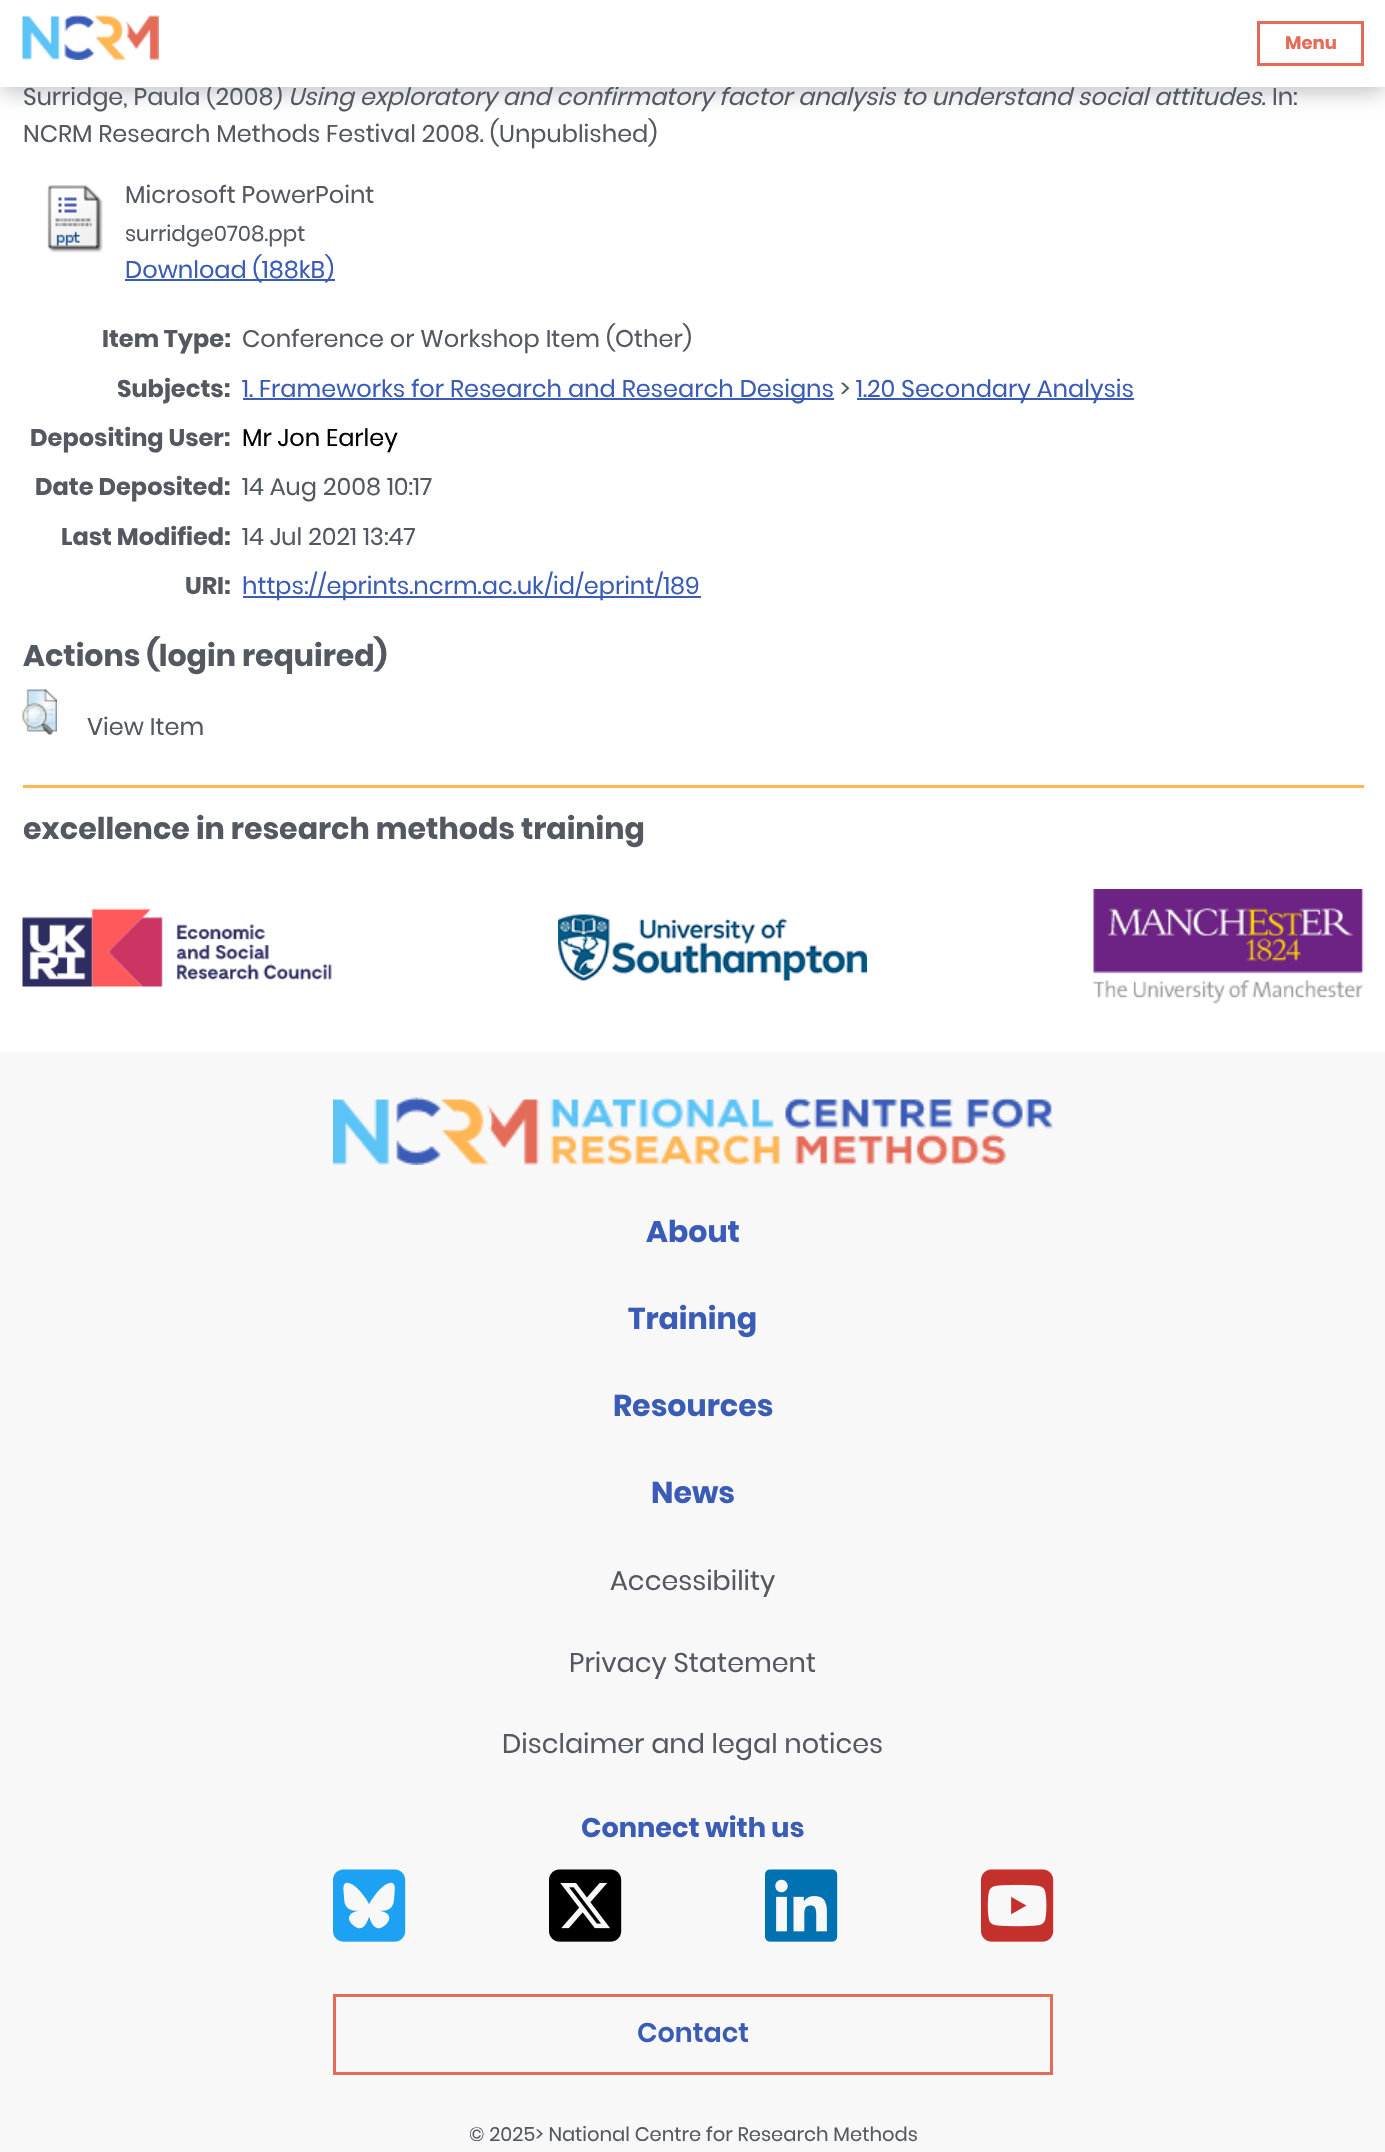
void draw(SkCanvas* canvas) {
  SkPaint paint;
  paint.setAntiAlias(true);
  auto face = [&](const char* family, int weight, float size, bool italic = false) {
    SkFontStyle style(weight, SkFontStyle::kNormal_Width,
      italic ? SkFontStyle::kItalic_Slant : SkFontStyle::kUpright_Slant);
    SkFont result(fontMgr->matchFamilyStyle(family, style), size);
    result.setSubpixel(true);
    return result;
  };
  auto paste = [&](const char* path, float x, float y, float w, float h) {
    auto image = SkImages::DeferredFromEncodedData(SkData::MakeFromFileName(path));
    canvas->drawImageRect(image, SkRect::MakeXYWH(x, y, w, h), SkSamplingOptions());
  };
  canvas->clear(0xffffffff);
  paint.setColor(0x59545860);
  paint.setMaskFilter(SkMaskFilter::MakeBlur(kNormal_SkBlurStyle, 10));
  canvas->drawRect(SkRect::MakeXYWH(2, 9, 1383, 84), paint);
  paint.setMaskFilter(nullptr);
  paste("img/2.png", 47, 185, 56, 68);
  {
    const struct { float x, y, w, h; SkColor color; } items[] = {
      {125, 279, 210, 2, 0xff3a5cb7},
      {243, 398, 591, 2, 0xff3a5cb7},
      {857, 398, 277, 2, 0xff3a5cb7},
      {243, 596, 458, 2, 0xff3a5cb7},
    };
    for (auto [x, y, w, h, color] : items) {
      paint.setColor(color);
      canvas->drawRect(SkRect::MakeXYWH(x, y, w, h), paint);
    }
  }
  paste("img/3.png", 22, 689, 35, 46);
  paint.setColor(0xffffb653);
  canvas->drawRect(SkRect::MakeXYWH(23, 785, 1341, 3), paint);
  paste("img/4.png", 22, 908, 310, 79);
  paste("img/5.png", 558, 914, 309, 67);
  paste("img/6.png", 1093, 889, 271, 115);
  paint.setColor(0xfff8f8f8);
  canvas->drawRect(SkRect::MakeXYWH(0, 1052, 1385, 1100), paint);
  paste("img/7.png", 333, 1097, 720, 68);
  paste("img/8.png", 333, 1869, 73, 73);
  paste("img/9.png", 549, 1869, 73, 73);
  paste("img/10.png", 765, 1869, 73, 73);
  paste("img/11.png", 981, 1869, 73, 73);
  paint.setStroke(true);
  paint.setStrokeWidth(3);
  paint.setColor(0xffe56b59);
  canvas->drawRect(SkRect::MakeXYWH(334.5f, 1995.5f, 717, 78), paint);
  auto f0 = face("Poppins", 400, 24);
  paint.setStroke(false);
  paint.setColor(0xff545860);
  canvas->drawString("Surridge, Paula (2008)", 23, 105, f0, paint);
  auto f1 = face("Poppins", 400, 24, true);
  canvas->drawString("Using exploratory and confirmatory factor analysis to understand social attitudes.", 288, 105, f1, paint);
  paint.setColor(0xffffffff);
  canvas->drawRect(SkRect::MakeXYWH(0, 0, 1385, 87), paint);
  paint.setStroke(true);
  paint.setColor(0xffe56b59);
  canvas->drawRect(SkRect::MakeXYWH(1258.5f, 22.5f, 104, 42), paint);
  auto f2 = face("Poppins", 700, 18);
  paint.setStroke(false);
  canvas->drawString("Menu", 1285, 49, f2, paint);
  paste("img/1.png", 22, 15, 137, 45);
  paint.setColor(0xff545860);
  {
    const struct { const char* s; float x, y; } items[] = {
      {"In:", 1272, 105},
      {"NCRM Research Methods Festival 2008. (Unpublished)", 23, 142},
      {"Microsoft PowerPoint", 125, 203},
    };
    for (auto [s, x, y] : items) {
      canvas->drawString(s, x, y, f0, paint);
    }
  }
  auto f3 = face("Poppins", 400, 21.5f);
  canvas->drawString("surridge0708.ppt", 125, 241, f3, paint);
  paint.setColor(0xff3a5cb7);
  canvas->drawString("Download (188kB)", 125, 278, f0, paint);
  auto f4 = face("Poppins", 700, 24);
  paint.setColor(0xff545860);
  canvas->drawString("Item Type:", 102, 347, f4, paint);
  canvas->drawString("Conference or Workshop Item (Other)", 242, 347, f0, paint);
  canvas->drawString("Subjects:", 117, 397, f4, paint);
  paint.setColor(0xff3a5cb7);
  canvas->drawString("1. Frameworks for Research and Research Designs", 242, 397, f0, paint);
  paint.setColor(0xff545860);
  canvas->drawString(">", 840, 397, f0, paint);
  paint.setColor(0xff3a5cb7);
  canvas->drawString("1.20 Secondary Analysis", 856, 397, f0, paint);
  paint.setColor(0xff545860);
  canvas->drawString("Depositing User:", 30, 446, f4, paint);
  paint.setColor(0xff000000);
  canvas->drawString("Mr Jon Earley", 242, 446, f0, paint);
  paint.setColor(0xff545860);
  canvas->drawString("Date Deposited:", 35, 495, f4, paint);
  canvas->drawString("14 Aug 2008 10:17", 242, 495, f0, paint);
  canvas->drawString("Last Modified:", 61, 545, f4, paint);
  canvas->drawString("14 Jul 2021 13:47", 242, 545, f0, paint);
  canvas->drawString("URI:", 185, 594, f4, paint);
  paint.setColor(0xff3a5cb7);
  canvas->drawString("https://eprints.ncrm.ac.uk/id/eprint/189", 242, 594, f0, paint);
  auto f5 = face("Poppins", 700, 30);
  paint.setColor(0xff545860);
  canvas->drawString("Actions (login required)", 23, 666, f5, paint);
  canvas->drawString("View Item", 87, 735, f0, paint);
  canvas->drawString("excellence in research methods training", 23, 839, f5, paint);
  paint.setColor(0xff3a5cb7);
  {
    const struct { const char* s; float x, y; } items[] = {
      {"About", 646, 1242},
      {"Training", 628, 1329},
      {"Resources", 613, 1416},
      {"News", 651, 1503},
    };
    for (auto [s, x, y] : items) {
      canvas->drawString(s, x, y, f5, paint);
    }
  }
  auto f6 = face("Poppins", 400, 27);
  paint.setColor(0xff545860);
  {
    const struct { const char* s; float x, y; } items[] = {
      {"Accessibility", 610, 1590},
      {"Privacy Statement", 569, 1672},
      {"Disclaimer and legal notices", 502, 1753},
    };
    for (auto [s, x, y] : items) {
      canvas->drawString(s, x, y, f6, paint);
    }
  }
  auto f7 = face("Poppins", 700, 27);
  paint.setColor(0xff3a5cb7);
  canvas->drawString("Connect with us", 581, 1837, f7, paint);
  auto f8 = face("Poppins", 600, 27);
  canvas->drawString("Contact", 637, 2042, f8, paint);
  auto f9 = face("Poppins", 400, 19.5f);
  paint.setColor(0xff545860);
  canvas->drawString("© 2025> National Centre for Research Methods", 469, 2141, f9, paint);
}
